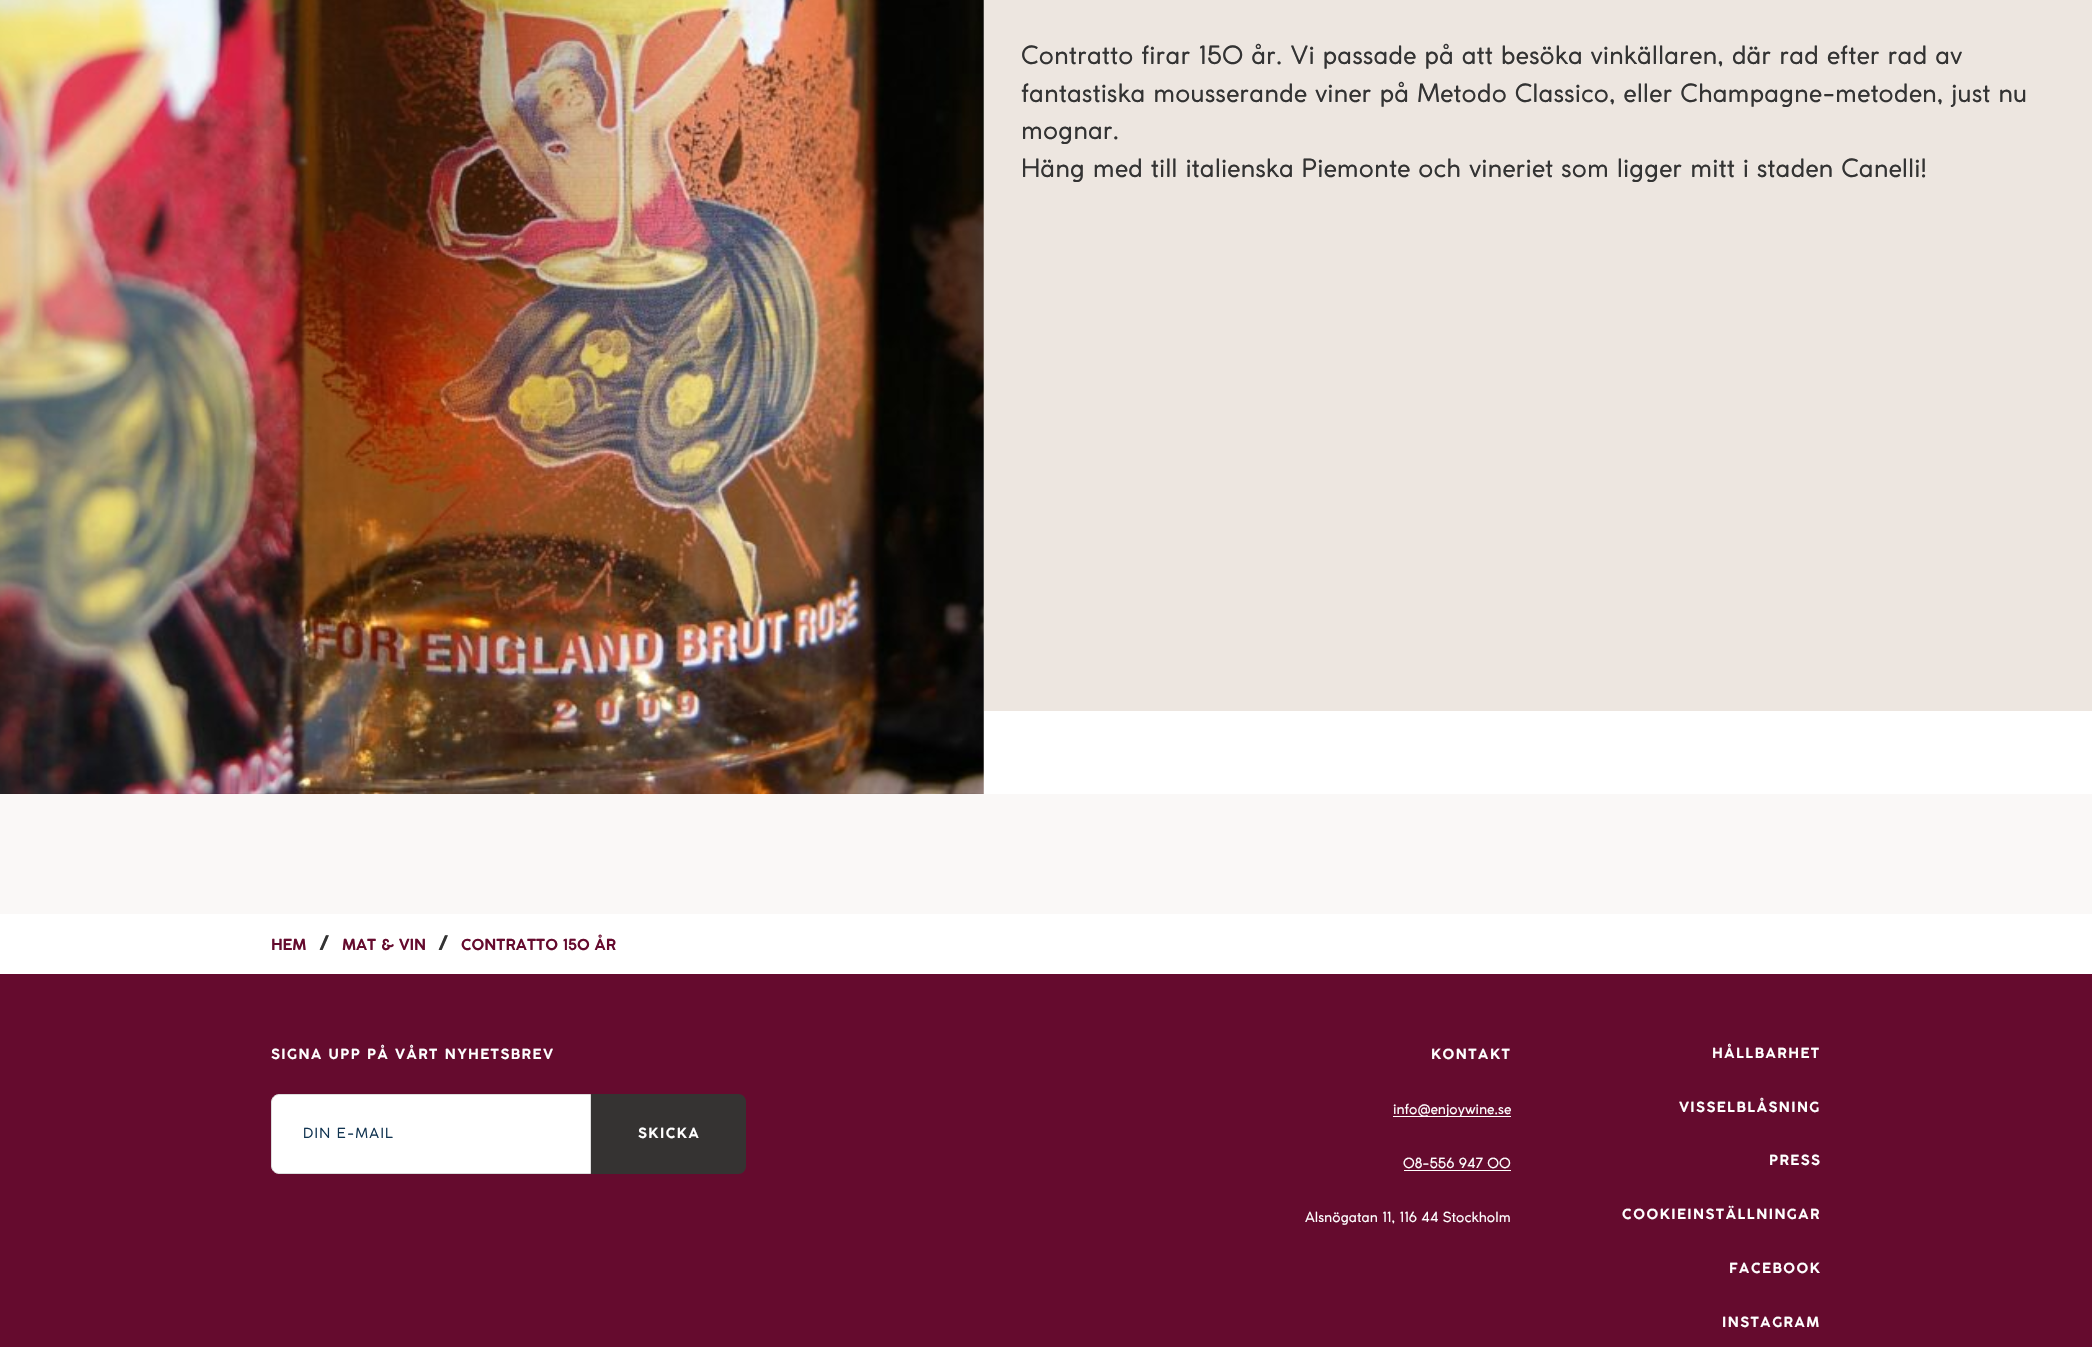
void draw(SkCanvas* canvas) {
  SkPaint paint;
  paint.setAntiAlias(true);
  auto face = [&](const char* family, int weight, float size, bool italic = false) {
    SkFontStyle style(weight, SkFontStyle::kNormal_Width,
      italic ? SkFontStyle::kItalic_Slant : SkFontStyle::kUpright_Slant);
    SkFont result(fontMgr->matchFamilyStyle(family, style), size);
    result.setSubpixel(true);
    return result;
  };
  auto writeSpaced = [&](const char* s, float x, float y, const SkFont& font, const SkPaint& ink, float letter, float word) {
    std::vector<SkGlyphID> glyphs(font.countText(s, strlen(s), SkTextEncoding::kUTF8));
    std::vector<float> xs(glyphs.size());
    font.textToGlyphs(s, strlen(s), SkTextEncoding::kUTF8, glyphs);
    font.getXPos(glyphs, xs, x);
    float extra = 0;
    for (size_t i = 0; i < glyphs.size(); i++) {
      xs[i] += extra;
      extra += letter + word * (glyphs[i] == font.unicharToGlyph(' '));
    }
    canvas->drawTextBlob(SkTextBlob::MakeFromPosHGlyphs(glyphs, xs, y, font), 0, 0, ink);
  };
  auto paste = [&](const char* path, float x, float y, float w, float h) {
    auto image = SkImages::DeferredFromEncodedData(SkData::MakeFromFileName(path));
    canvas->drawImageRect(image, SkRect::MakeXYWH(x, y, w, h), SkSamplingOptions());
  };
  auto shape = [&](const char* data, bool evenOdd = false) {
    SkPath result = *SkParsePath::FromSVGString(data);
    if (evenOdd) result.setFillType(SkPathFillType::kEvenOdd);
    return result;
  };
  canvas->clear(0xfffaf8f7);
  paste("img/1.png", 0, 0, 984, 794);
  {
    const struct { float x, y, w, h; SkColor color; } items[] = {
      {984, 0, 1108, 711, 0xffede6e0},
      {984, 711, 1108, 83, 0xffffffff},
      {0, 914, 2092, 60, 0xffffffff},
      {0, 974, 2092, 373, 0xff650b2e},
    };
    for (auto [x, y, w, h, color] : items) {
      paint.setColor(color);
      canvas->drawRect(SkRect::MakeXYWH(x, y, w, h), paint);
    }
  }
  paint.setColor(0xffffffff);
  canvas->drawPath(shape("M279 1094.5H590.5V1173.5H279C275 1173.5 271.5 1170 271.5 1166V1102C271.5 1098 275 1094.5 279 1094.5Z"), paint);
  paint.setStroke(true);
  paint.setStrokeWidth(1);
  paint.setColor(0xffdddddd);
  canvas->drawPath(shape("M279 1094.5H590.5V1173.5H279C275 1173.5 271.5 1170 271.5 1166V1102C271.5 1098 275 1094.5 279 1094.5Z"), paint);
  paint.setStroke(false);
  paint.setColor(0xff353332);
  canvas->drawPath(shape("M591 1094H738C742.5 1094 746 1097.5 746 1102V1166C746 1170.5 742.5 1174 738 1174H591Z"), paint);
  paint.setColor(0xffffffff);
  canvas->drawRect(SkRect::MakeXYWH(1393, 1116, 118, 1), paint);
  canvas->drawRect(SkRect::MakeXYWH(1404, 1170, 107, 1), paint);
  auto f0 = face("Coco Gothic", 400, 25);
  paint.setColor(0xff333333);
  {
    const struct { const char* s; float x, y; } items[] = {
      {"Contratto firar 150 år. Vi passade på att besöka vinkällaren, där rad efter rad av", 1021, 64},
      {"fantastiska mousserande viner på Metodo Classico, eller Champagne-metoden, just nu", 1021, 102},
      {"mognar.", 1021, 139},
      {"Häng med till italienska Piemonte och vineriet som ligger mitt i staden Canelli!", 1021, 177},
    };
    for (auto [s, x, y] : items) {
      canvas->drawString(s, x, y, f0, paint);
    }
  }
  auto f1 = face("Coco Gothic", 700, 15);
  paint.setColor(0xff650b2e);
  canvas->drawString("HEM", 271, 950, f1, paint);
  auto f2 = face("Coco Gothic", 700, 20);
  paint.setColor(0xff333333);
  canvas->drawString("/", 319, 950, f2, paint);
  paint.setColor(0xff650b2e);
  canvas->drawString("MAT & VIN", 342, 950, f1, paint);
  paint.setColor(0xff333333);
  canvas->drawString("/", 438, 950, f2, paint);
  paint.setColor(0xff650b2e);
  canvas->drawString("CONTRATTO 150 ÅR", 461, 950, f1, paint);
  auto f3 = face("Coco Gothic", 700, 13.75f);
  paint.setColor(0xffffffff);
  writeSpaced("SIGNA UPP PÅ VÅRT NYHETSBREV", 271, 1059, f3, paint, 1.5f, 0);
  auto f4 = face("Coco Gothic", 400, 13.75f);
  paint.setColor(0xff113451);
  writeSpaced("DIN E-MAIL", 303, 1138, f4, paint, 1.25f, 0);
  paint.setColor(0xffffffff);
  writeSpaced("SKICKA", 638, 1138, f3, paint, 1.5f, 0);
  writeSpaced("KONTAKT", 1431, 1059, f3, paint, 1.5f, 0);
  {
    const struct { const char* s; float x, y; } items[] = {
      {"info@enjoywine.se", 1393, 1114},
      {"08-556 947 00", 1403, 1168},
      {"Alsnögatan 11, 116 44 Stockholm", 1305, 1222},
    };
    for (auto [s, x, y] : items) {
      canvas->drawString(s, x, y, f4, paint);
    }
  }
  {
    const struct { const char* s; float x, y; } items[] = {
      {"HÅLLBARHET", 1712, 1058},
      {"VISSELBLÅSNING", 1679, 1112},
      {"PRESS", 1769, 1165},
      {"COOKIEINSTÄLLNINGAR", 1622, 1219},
      {"FACEBOOK", 1729, 1273},
      {"INSTAGRAM", 1722, 1327},
    };
    for (auto [s, x, y] : items) {
      writeSpaced(s, x, y, f3, paint, 1.5f, 0);
    }
  }
}
